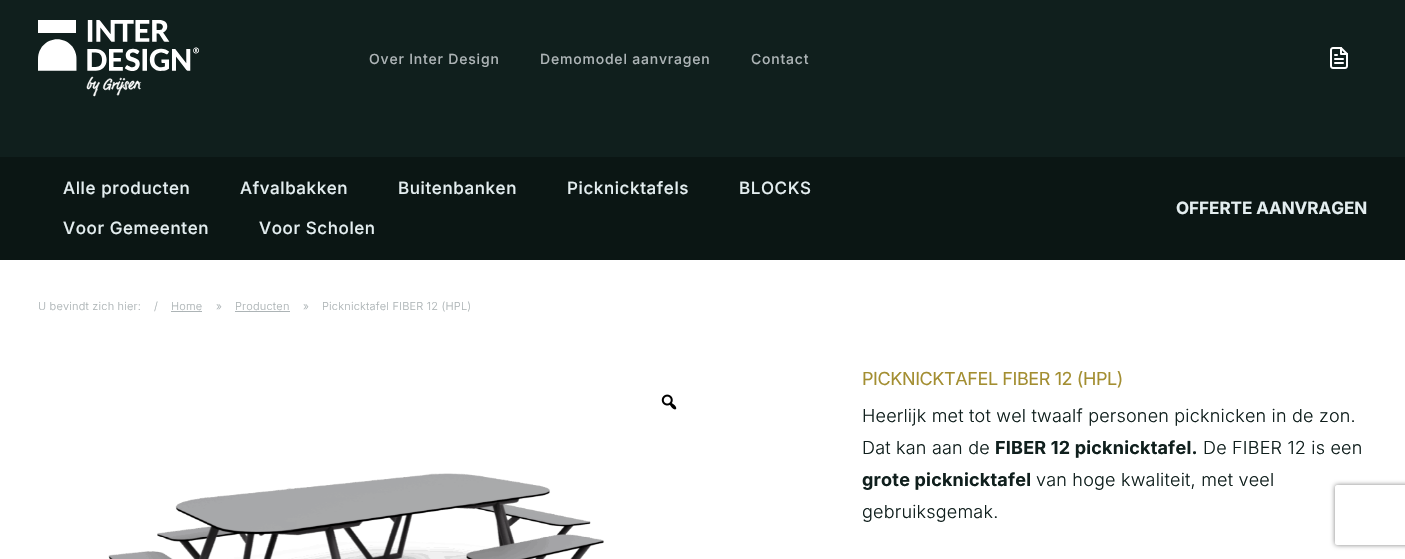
void draw(SkCanvas* canvas) {
  SkPaint paint;
  paint.setAntiAlias(true);
  auto face = [&](const char* family, int weight, float size, bool italic = false) {
    SkFontStyle style(weight, SkFontStyle::kNormal_Width,
      italic ? SkFontStyle::kItalic_Slant : SkFontStyle::kUpright_Slant);
    SkFont result(fontMgr->matchFamilyStyle(family, style), size);
    result.setSubpixel(true);
    return result;
  };
  auto writeSpaced = [&](const char* s, float x, float y, const SkFont& font, const SkPaint& ink, float letter, float word) {
    std::vector<SkGlyphID> glyphs(font.countText(s, strlen(s), SkTextEncoding::kUTF8));
    std::vector<float> xs(glyphs.size());
    font.textToGlyphs(s, strlen(s), SkTextEncoding::kUTF8, glyphs);
    font.getXPos(glyphs, xs, x);
    float extra = 0;
    for (size_t i = 0; i < glyphs.size(); i++) {
      xs[i] += extra;
      extra += letter + word * (glyphs[i] == font.unicharToGlyph(' '));
    }
    canvas->drawTextBlob(SkTextBlob::MakeFromPosHGlyphs(glyphs, xs, y, font), 0, 0, ink);
  };
  auto paste = [&](const char* path, float x, float y, float w, float h) {
    auto image = SkImages::DeferredFromEncodedData(SkData::MakeFromFileName(path));
    canvas->drawImageRect(image, SkRect::MakeXYWH(x, y, w, h), SkSamplingOptions());
  };
  auto shape = [&](const char* data, bool evenOdd = false) {
    SkPath result = *SkParsePath::FromSVGString(data);
    if (evenOdd) result.setFillType(SkPathFillType::kEvenOdd);
    return result;
  };
  canvas->clear(0xffffffff);
  paint.setColor(0xff101f1d);
  canvas->drawRect(SkRect::MakeXYWH(0, 0, 1405, 157), paint);
  paste("img/1.png", 38, 20, 161, 77);
  paste("img/2.png", 1330, 47, 18, 22);
  {
    const struct { float x, y, w, h; SkColor color; } items[] = {
      {0, 157, 1405, 103, 0xff0b1614},
      {171, 311, 31, 1, 0xffadb4b6},
      {235, 311, 55, 1, 0xffadb4b6},
    };
    for (auto [x, y, w, h, color] : items) {
      paint.setColor(color);
      canvas->drawRect(SkRect::MakeXYWH(x, y, w, h), paint);
    }
  }
  paste("img/3.png", 661, 394, 16, 16);
  paste("img/4.png", 108, 473, 496, 86);
  canvas->save();
  canvas->clipPath(shape("M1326 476H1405V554H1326ZM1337 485H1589C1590 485 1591 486 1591 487V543C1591 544 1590 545 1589 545H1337C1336 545 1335 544 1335 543V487C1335 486 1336 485 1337 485Z", true), true);
  paint.setColor(0xff808080);
  paint.setMaskFilter(SkMaskFilter::MakeBlur(kNormal_SkBlurStyle, 2.5f));
  canvas->drawRoundRect(SkRect::MakeXYWH(1335, 485, 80, 60), 2, 2, paint);
  paint.setMaskFilter(nullptr);
  canvas->restore();
  auto f0 = face("Inter", 500, 14);
  paint.setColor(0xffadb4b6);
  {
    const struct { const char* s; float x, y; } items[] = {
      {"Over Inter Design", 369, 64},
      {"Demomodel aanvragen", 540, 64},
      {"Contact", 751, 64},
    };
    for (auto [s, x, y] : items) {
      writeSpaced(s, x, y, f0, paint, 0.8f, 0);
    }
  }
  auto f1 = face("Inter", 500, 17);
  paint.setColor(0xffe4eef0);
  {
    const struct { const char* s; float x, y; } items[] = {
      {"Alle producten", 63, 194},
      {"Afvalbakken", 240, 194},
      {"Buitenbanken", 398, 194},
      {"Picknicktafels", 567, 194},
      {"BLOCKS", 739, 194},
      {"Voor Gemeenten", 63, 234},
      {"Voor Scholen", 259, 234},
    };
    for (auto [s, x, y] : items) {
      writeSpaced(s, x, y, f1, paint, 0.6f, 0);
    }
  }
  auto f2 = face("Inter", 700, 17);
  canvas->drawString("OFFERTE AANVRAGEN", 1176, 214, f2, paint);
  auto f3 = face("Inter", 300, 11);
  paint.setColor(0xffadb4b6);
  {
    const struct { const char* s; float x, y; } items[] = {
      {"U bevindt zich hier:", 38, 310},
      {"/", 154, 310},
      {"Home", 171, 310},
      {"»", 216, 310},
      {"Producten", 235, 310},
      {"»", 303, 310},
      {"Picknicktafel FIBER 12 (HPL)", 322, 310},
    };
    for (auto [s, x, y] : items) {
      writeSpaced(s, x, y, f3, paint, 0.2f, 0);
    }
  }
  auto f4 = face("Inter", 400, 18);
  paint.setColor(0xffa38e31);
  writeSpaced("PICKNICKTAFEL FIBER 12 (HPL)", 862, 385, f4, paint, -0.4f, 0);
  auto f5 = face("Inter", 300, 18);
  paint.setColor(0xff101f1d);
  writeSpaced("Heerlijk met tot wel twaalf personen picknicken in de zon.", 862, 422, f5, paint, 0.2f, 0);
  writeSpaced("Dat kan aan de", 862, 454, f5, paint, 0.2f, 0);
  auto f6 = face("Inter", 700, 18);
  writeSpaced("FIBER 12 picknicktafel.", 995, 454, f6, paint, 0.2f, 0);
  writeSpaced("De FIBER 12 is een", 1203, 454, f5, paint, 0.2f, 0);
  writeSpaced("grote picknicktafel", 862, 486, f6, paint, 0.2f, 0);
  writeSpaced("van hoge kwaliteit, met veel", 1036, 486, f5, paint, 0.2f, 0);
  writeSpaced("gebruiksgemak.", 862, 518, f5, paint, 0.2f, 0);
}
